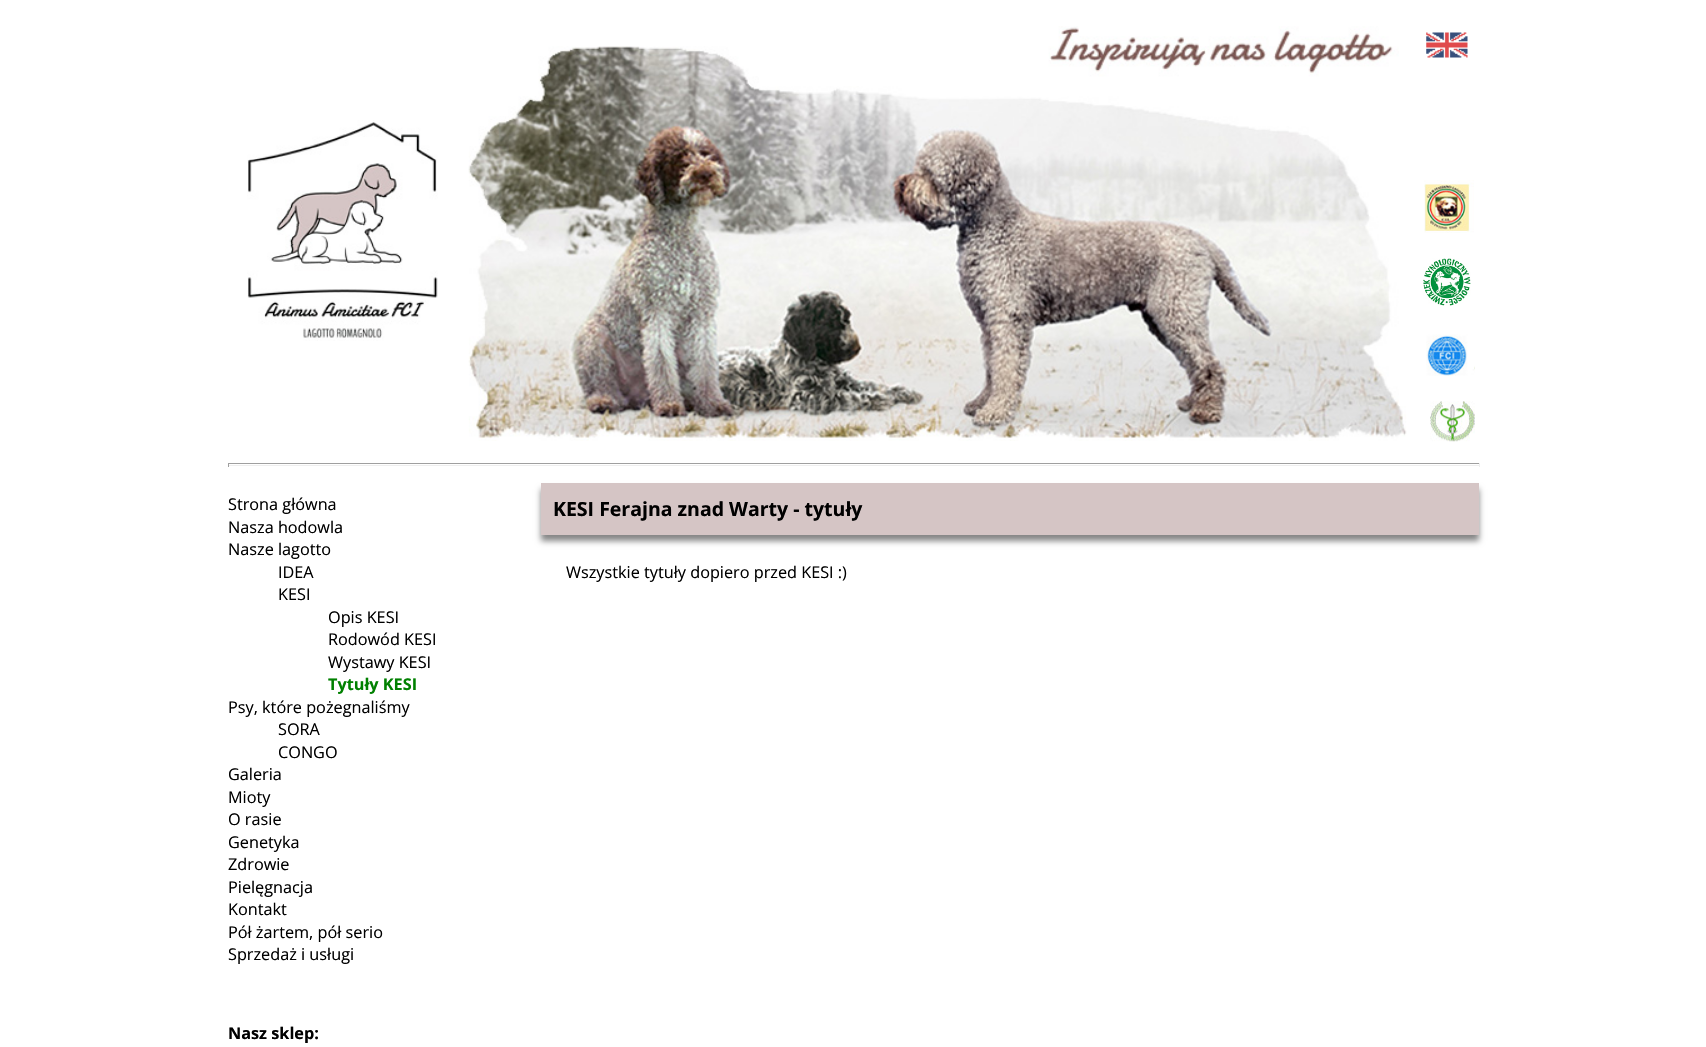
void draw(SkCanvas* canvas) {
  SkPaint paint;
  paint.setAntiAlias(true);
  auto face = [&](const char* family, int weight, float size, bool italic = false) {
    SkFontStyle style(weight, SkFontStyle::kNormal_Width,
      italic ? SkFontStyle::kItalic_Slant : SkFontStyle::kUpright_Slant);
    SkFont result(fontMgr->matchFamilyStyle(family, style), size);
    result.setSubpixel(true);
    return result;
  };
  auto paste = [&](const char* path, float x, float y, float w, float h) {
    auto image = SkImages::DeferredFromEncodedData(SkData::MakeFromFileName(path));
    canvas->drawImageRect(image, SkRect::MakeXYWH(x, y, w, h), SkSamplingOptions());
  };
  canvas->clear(0xffffffff);
  paste("img/1.png", 468, 26, 939, 415);
  paste("img/2.png", 1426, 32, 42, 26);
  paste("img/3.png", 247, 120, 191, 221);
  paste("img/4.png", 1424, 180, 50, 53);
  paste("img/5.png", 1423, 258, 48, 48);
  paste("img/6.png", 1426, 334, 49, 42);
  paste("img/7.png", 1430, 401, 45, 41);
  {
    const struct { float x, y, w, h; SkColor color; } items[] = {
      {228, 463, 1252, 1, 0xff9f9f9f},
      {1479, 463, 1, 4, 0xffeeeeee},
      {228, 465, 1252, 1, 0xffeeeeee},
      {228, 463, 1, 4, 0xff9f9f9f},
    };
    for (auto [x, y, w, h, color] : items) {
      paint.setColor(color);
      canvas->drawRect(SkRect::MakeXYWH(x, y, w, h), paint);
    }
  }
  paint.setColor(0xff858585);
  paint.setMaskFilter(SkMaskFilter::MakeBlur(kNormal_SkBlurStyle, 3));
  canvas->drawRect(SkRect::MakeXYWH(541, 489, 938, 52), paint);
  paint.setMaskFilter(nullptr);
  paint.setColor(0xffd5c5c5);
  canvas->drawRect(SkRect::MakeXYWH(541, 483, 938, 52), paint);
  auto f0 = face("Open Sans", 400, 16.25f);
  paint.setColor(0xff000000);
  {
    const struct { const char* s; float x, y; } items[] = {
      {"Strona główna", 228, 510},
      {"Nasza hodowla", 228, 533},
      {"Nasze lagotto", 228, 555},
      {"IDEA", 278, 578},
      {"KESI", 278, 600},
      {"Opis KESI", 328, 623},
      {"Rodowód KESI", 328, 645},
      {"Wystawy KESI", 328, 668},
    };
    for (auto [s, x, y] : items) {
      canvas->drawString(s, x, y, f0, paint);
    }
  }
  auto f1 = face("Open Sans", 700, 16.25f);
  paint.setColor(0xff008000);
  canvas->drawString("Tytuły KESI", 328, 690, f1, paint);
  paint.setColor(0xff000000);
  {
    const struct { const char* s; float x, y; } items[] = {
      {"Psy, które pożegnaliśmy", 228, 713},
      {"SORA", 278, 735},
      {"CONGO", 278, 758},
      {"Galeria", 228, 780},
      {"Mioty", 228, 803},
      {"O rasie", 228, 825},
      {"Genetyka", 228, 848},
      {"Zdrowie", 228, 870},
      {"Pielęgnacja", 228, 893},
      {"Kontakt", 228, 915},
      {"Pół żartem, pół serio", 228, 938},
      {"Sprzedaż i usługi", 228, 960},
    };
    for (auto [s, x, y] : items) {
      canvas->drawString(s, x, y, f0, paint);
    }
  }
  canvas->drawString("Nasz sklep:", 228, 1039, f1, paint);
  auto f2 = face("Open Sans", 700, 19.5f);
  canvas->drawString("KESI Ferajna znad Warty - tytuły", 553, 516, f2, paint);
  canvas->drawString("Wszystkie tytuły dopiero przed KESI :)", 566, 578, f0, paint);
}
